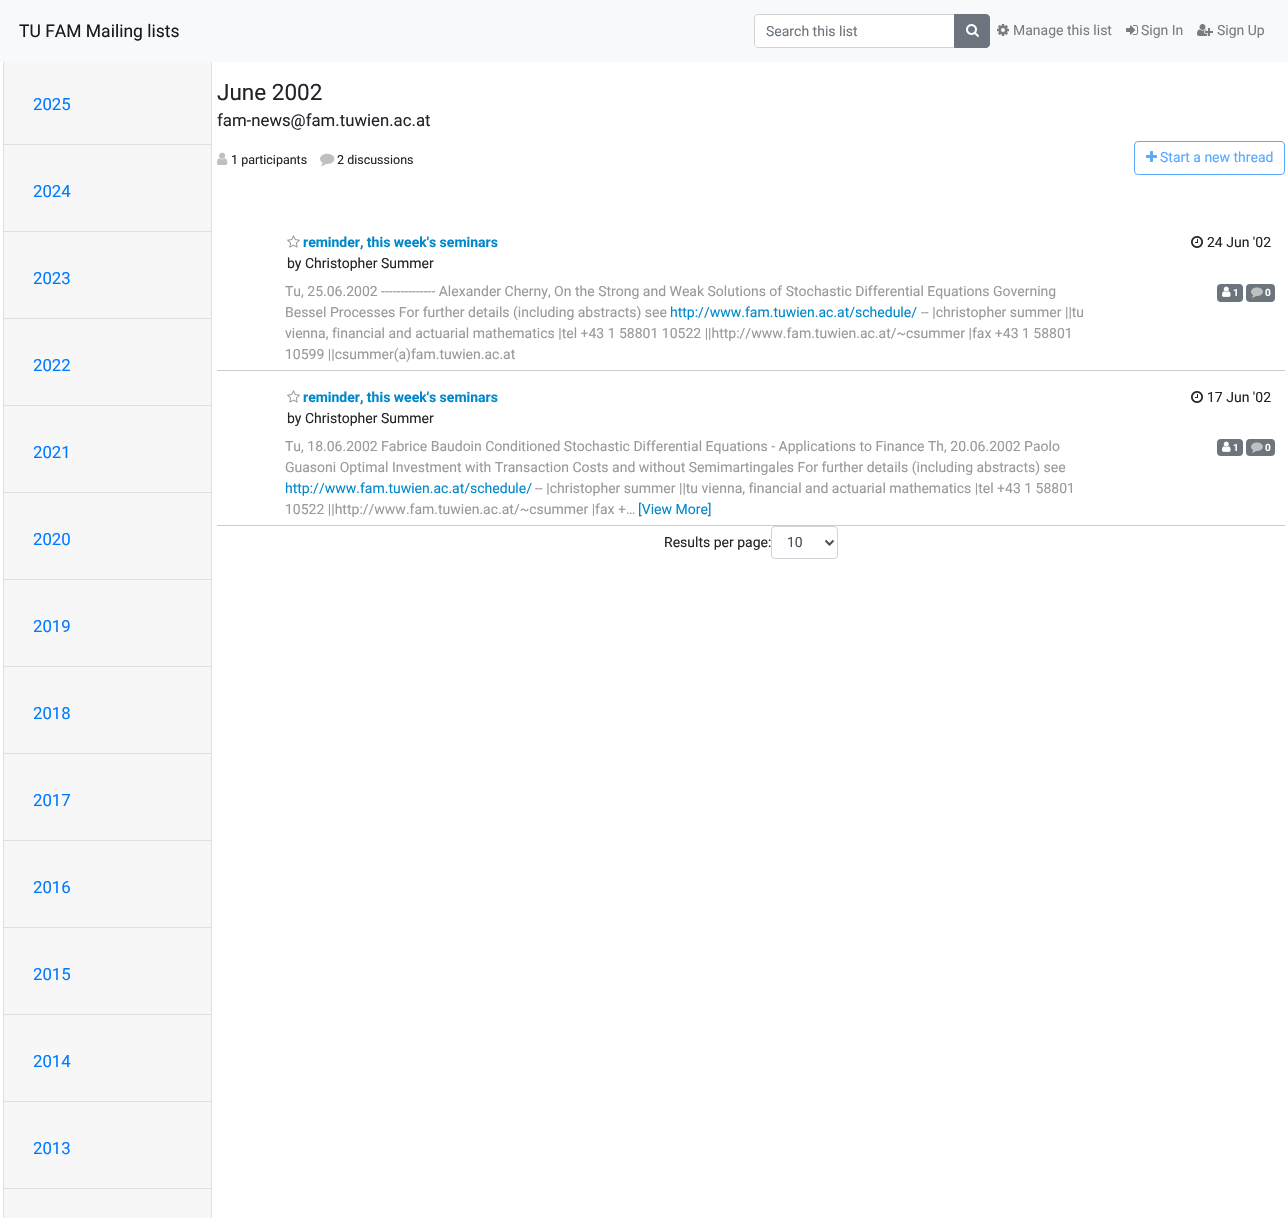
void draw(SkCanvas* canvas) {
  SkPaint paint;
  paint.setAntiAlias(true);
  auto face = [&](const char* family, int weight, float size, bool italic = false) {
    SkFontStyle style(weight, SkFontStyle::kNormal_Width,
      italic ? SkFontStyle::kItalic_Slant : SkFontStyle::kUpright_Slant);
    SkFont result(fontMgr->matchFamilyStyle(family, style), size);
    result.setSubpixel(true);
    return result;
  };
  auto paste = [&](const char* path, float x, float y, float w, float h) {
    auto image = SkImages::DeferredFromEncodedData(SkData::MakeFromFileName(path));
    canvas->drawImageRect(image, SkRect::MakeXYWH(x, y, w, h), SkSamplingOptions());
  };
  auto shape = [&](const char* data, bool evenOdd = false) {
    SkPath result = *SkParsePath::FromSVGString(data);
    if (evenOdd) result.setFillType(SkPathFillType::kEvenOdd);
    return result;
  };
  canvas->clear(0xffffffff);
  paint.setColor(0xffdfdfdf);
  canvas->drawPath(shape("M6 58H208C210 58 212 60 212 62V144H3V62C3 60 5 58 6 58ZM6 59H208C210 59 211 60 211 62V144H4V62C4 60 5 59 6 59Z", true), paint);
  paint.setColor(0xfff8f9fa);
  canvas->drawRect(SkRect::MakeXYWH(0, 0, 1288, 62), paint);
  paint.setColor(0xffffffff);
  canvas->drawPath(shape("M757.5 15H954V47H757.5C756 47 755 46 755 44.5V17.5C755 16 756 15 757.5 15Z"), paint);
  paint.setStroke(true);
  paint.setStrokeWidth(1);
  paint.setColor(0xffced4da);
  canvas->drawPath(shape("M758 14.5H954.5V47.5H758C756 47.5 754.5 46 754.5 44V18C754.5 16 756 14.5 758 14.5Z"), paint);
  paint.setStroke(false);
  paint.setColor(0xff6c757d);
  canvas->drawPath(shape("M954.5 14.5H986C988 14.5 989.5 16 989.5 18V44C989.5 46 988 47.5 986 47.5H954.5Z"), paint);
  paint.setStroke(true);
  canvas->drawPath(shape("M954.5 14.5H986C988 14.5 989.5 16 989.5 18V44C989.5 46 988 47.5 986 47.5H954.5Z"), paint);
  paste("img/1.png", 966, 24, 13, 13);
  paste("img/2.png", 997, 24, 12, 12);
  paste("img/3.png", 1126, 25, 12, 10);
  paste("img/4.png", 1197, 24, 16, 12);
  paint.setStroke(false);
  paint.setColor(0x08000000);
  canvas->drawRect(SkRect::MakeXYWH(4, 62, 207, 82), paint);
  paint.setColor(0xffdfdfdf);
  canvas->drawPath(shape("M3 144H212L211 145H4Z"), paint);
  paint.setColor(0x1f000000);
  canvas->drawPath(shape("M212 144V231H211V145Z"), paint);
  canvas->drawPath(shape("M3 231V144L4 145V231Z"), paint);
  paint.setColor(0xfff7f7f7);
  canvas->drawRect(SkRect::MakeXYWH(4, 145, 207, 86), paint);
  paint.setColor(0xffdfdfdf);
  canvas->drawPath(shape("M3 231H212L211 232H4Z"), paint);
  paint.setColor(0x1f000000);
  canvas->drawPath(shape("M212 231V318H211V232Z"), paint);
  canvas->drawPath(shape("M3 318V231L4 232V318Z"), paint);
  paint.setColor(0xfff7f7f7);
  canvas->drawRect(SkRect::MakeXYWH(4, 232, 207, 86), paint);
  paint.setColor(0xffdfdfdf);
  canvas->drawPath(shape("M3 318H212L211 319H4Z"), paint);
  paint.setColor(0x1f000000);
  canvas->drawPath(shape("M212 318V405H211V319Z"), paint);
  canvas->drawPath(shape("M3 405V318L4 319V405Z"), paint);
  paint.setColor(0xfff7f7f7);
  canvas->drawRect(SkRect::MakeXYWH(4, 319, 207, 86), paint);
  paint.setColor(0xffdfdfdf);
  canvas->drawPath(shape("M3 405H212L211 406H4Z"), paint);
  paint.setColor(0x1f000000);
  canvas->drawPath(shape("M212 405V492H211V406Z"), paint);
  canvas->drawPath(shape("M3 492V405L4 406V492Z"), paint);
  paint.setColor(0xfff7f7f7);
  canvas->drawRect(SkRect::MakeXYWH(4, 406, 207, 86), paint);
  paint.setColor(0xffdfdfdf);
  canvas->drawPath(shape("M3 492H212L211 493H4Z"), paint);
  paint.setColor(0x1f000000);
  canvas->drawPath(shape("M212 492V579H211V493Z"), paint);
  canvas->drawPath(shape("M3 579V492L4 493V579Z"), paint);
  paint.setColor(0xfff7f7f7);
  canvas->drawRect(SkRect::MakeXYWH(4, 493, 207, 86), paint);
  paint.setColor(0xffdfdfdf);
  canvas->drawPath(shape("M3 579H212L211 580H4Z"), paint);
  paint.setColor(0x1f000000);
  canvas->drawPath(shape("M212 579V666H211V580Z"), paint);
  canvas->drawPath(shape("M3 666V579L4 580V666Z"), paint);
  paint.setColor(0xfff7f7f7);
  canvas->drawRect(SkRect::MakeXYWH(4, 580, 207, 86), paint);
  paint.setColor(0xffdfdfdf);
  canvas->drawPath(shape("M3 666H212L211 667H4Z"), paint);
  paint.setColor(0x1f000000);
  canvas->drawPath(shape("M212 666V753H211V667Z"), paint);
  canvas->drawPath(shape("M3 753V666L4 667V753Z"), paint);
  paint.setColor(0xfff7f7f7);
  canvas->drawRect(SkRect::MakeXYWH(4, 667, 207, 86), paint);
  paint.setColor(0xffdfdfdf);
  canvas->drawPath(shape("M3 753H212L211 754H4Z"), paint);
  paint.setColor(0x1f000000);
  canvas->drawPath(shape("M212 753V840H211V754Z"), paint);
  canvas->drawPath(shape("M3 840V753L4 754V840Z"), paint);
  paint.setColor(0xfff7f7f7);
  canvas->drawRect(SkRect::MakeXYWH(4, 754, 207, 86), paint);
  paint.setColor(0xffdfdfdf);
  canvas->drawPath(shape("M3 840H212L211 841H4Z"), paint);
  paint.setColor(0x1f000000);
  canvas->drawPath(shape("M212 840V927H211V841Z"), paint);
  canvas->drawPath(shape("M3 927V840L4 841V927Z"), paint);
  paint.setColor(0xfff7f7f7);
  canvas->drawRect(SkRect::MakeXYWH(4, 841, 207, 86), paint);
  paint.setColor(0xffdfdfdf);
  canvas->drawPath(shape("M3 927H212L211 928H4Z"), paint);
  paint.setColor(0x1f000000);
  canvas->drawPath(shape("M212 927V1014H211V928Z"), paint);
  canvas->drawPath(shape("M3 1014V927L4 928V1014Z"), paint);
  paint.setColor(0xfff7f7f7);
  canvas->drawRect(SkRect::MakeXYWH(4, 928, 207, 86), paint);
  paint.setColor(0xffdfdfdf);
  canvas->drawPath(shape("M3 1014H212L211 1015H4Z"), paint);
  paint.setColor(0x1f000000);
  canvas->drawPath(shape("M212 1014V1101H211V1015Z"), paint);
  canvas->drawPath(shape("M3 1101V1014L4 1015V1101Z"), paint);
  paint.setColor(0xfff7f7f7);
  canvas->drawRect(SkRect::MakeXYWH(4, 1015, 207, 86), paint);
  paint.setColor(0xffdfdfdf);
  canvas->drawPath(shape("M3 1101H212L211 1102H4Z"), paint);
  paint.setColor(0x1f000000);
  canvas->drawPath(shape("M212 1101V1188H211V1102Z"), paint);
  canvas->drawPath(shape("M3 1188V1101L4 1102V1188Z"), paint);
  paint.setColor(0xfff7f7f7);
  canvas->drawRect(SkRect::MakeXYWH(4, 1102, 207, 86), paint);
  paint.setColor(0xffdfdfdf);
  canvas->drawPath(shape("M3 1188H212L211 1189H4Z"), paint);
  paint.setColor(0x1f000000);
  canvas->drawPath(shape("M212 1188V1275H211V1189Z"), paint);
  canvas->drawPath(shape("M3 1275V1188L4 1189V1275Z"), paint);
  paint.setColor(0xfff7f7f7);
  canvas->drawRect(SkRect::MakeXYWH(4, 1189, 207, 29), paint);
  paste("img/5.png", 217, 152, 11, 13);
  paste("img/6.png", 320, 153, 15, 13);
  paint.setStroke(true);
  paint.setColor(0xff59a9ff);
  canvas->drawRoundRect(SkRect::MakeXYWH(1134.5f, 141.5f, 150, 33), 3.5f, 3.5f, paint);
  paste("img/7.png", 1146, 151, 11, 11);
  paint.setStroke(false);
  paint.setColor(0xffcccccc);
  canvas->drawRect(SkRect::MakeXYWH(217, 370, 1068, 1), paint);
  paste("img/8.png", 287, 235, 13, 13);
  paste("img/9.png", 1191, 236, 12, 12);
  paint.setColor(0xff6c757d);
  canvas->drawRoundRect(SkRect::MakeXYWH(1217, 284, 26, 18), 4, 4, paint);
  paste("img/10.png", 1222, 286, 9, 11);
  canvas->drawRoundRect(SkRect::MakeXYWH(1246, 284, 29, 18), 4, 4, paint);
  paste("img/11.png", 1251, 287, 12, 11);
  paint.setColor(0xffcccccc);
  canvas->drawRect(SkRect::MakeXYWH(217, 525, 1068, 1), paint);
  paste("img/8.png", 287, 390, 13, 13);
  paste("img/9.png", 1191, 391, 12, 12);
  paint.setColor(0xff6c757d);
  canvas->drawRoundRect(SkRect::MakeXYWH(1217, 439, 26, 17), 4, 4, paint);
  paste("img/10.png", 1222, 441, 9, 11);
  canvas->drawRoundRect(SkRect::MakeXYWH(1246, 439, 29, 17), 4, 4, paint);
  paste("img/11.png", 1251, 442, 12, 11);
  paint.setStroke(true);
  paint.setColor(0xffced4da);
  canvas->drawRoundRect(SkRect::MakeXYWH(771.5f, 526.5f, 66, 32), 3.5f, 3.5f, paint);
  paint.setStrokeWidth(2);
  paint.setColor(0xff495057);
  canvas->drawPath(shape("M825.5 540.5L829.5 544.5L833.5 540.5"), paint);
  auto f0 = face("Roboto", 400, 17.5f);
  paint.setStroke(false);
  paint.setColor(0xff191919);
  canvas->drawString("TU FAM Mailing lists", 19, 37, f0, paint);
  auto f1 = face("Roboto", 400, 14);
  paint.setColor(0xff6c757d);
  canvas->drawString("Search this list", 766, 36, f1, paint);
  paint.setColor(0xff7c7d7d);
  {
    const struct { const char* s; float x, y; } items[] = {
      {"Manage this list", 1013, 35},
      {"Sign In", 1141, 35},
      {"Sign Up", 1217, 35},
    };
    for (auto [s, x, y] : items) {
      canvas->drawString(s, x, y, f1, paint);
    }
  }
  auto f2 = face("Roboto", 400, 16.75f);
  paint.setColor(0xff007bff);
  {
    const struct { const char* s; float x, y; } items[] = {
      {"2025", 33, 110},
      {"2024", 33, 197},
      {"2023", 33, 284},
      {"2022", 33, 371},
      {"2021", 33, 458},
      {"2020", 33, 545},
      {"2019", 33, 632},
      {"2018", 33, 719},
      {"2017", 33, 806},
      {"2016", 33, 893},
      {"2015", 33, 980},
      {"2014", 33, 1067},
      {"2013", 33, 1154},
    };
    for (auto [s, x, y] : items) {
      canvas->drawString(s, x, y, f2, paint);
    }
  }
  auto f3 = face("Roboto", 400, 22.5f);
  paint.setColor(0xff212529);
  canvas->drawString("June 2002", 217, 100, f3, paint);
  canvas->drawString("fam-news@fam.tuwien.ac.at", 217, 126, f2, paint);
  auto f4 = face("Roboto", 400, 12.5f);
  canvas->drawString("1 participants", 231, 164, f4, paint);
  canvas->drawString("2 discussions", 337, 164, f4, paint);
  paint.setColor(0xff59a9ff);
  canvas->drawString("Start a new thread", 1160, 162, f1, paint);
  auto f5 = face("Roboto", 700, 14);
  paint.setColor(0xff0088cc);
  canvas->drawString("reminder, this week's seminars", 303, 247, f5, paint);
  paint.setColor(0xff212529);
  canvas->drawString("by Christopher Summer", 287, 268, f1, paint);
  canvas->drawString("24 Jun '02", 1207, 247, f1, paint);
  paint.setColor(0xff999999);
  canvas->drawString("Tu, 25.06.2002 -------------- Alexander Cherny, On the Strong and Weak Solutions of Stochastic Differential Equations Governing", 285, 296, f1, paint);
  canvas->drawString("Bessel Processes For further details (including abstracts) see", 285, 317, f1, paint);
  paint.setColor(0xff0088cc);
  canvas->drawString("http://www.fam.tuwien.ac.at/schedule/", 670, 317, f1, paint);
  paint.setColor(0xff999999);
  {
    const struct { const char* s; float x, y; } items[] = {
      {"-- |christopher summer ||tu", 921, 317},
      {"vienna, financial and actuarial mathematics |tel +43 1 58801 10522 ||http://www.fam.tuwien.ac.at/~csummer |fax +43 1 58801", 285, 338},
      {"10599 ||csummer(a)fam.tuwien.ac.at", 285, 359},
    };
    for (auto [s, x, y] : items) {
      canvas->drawString(s, x, y, f1, paint);
    }
  }
  auto f6 = face("Roboto", 700, 10);
  paint.setColor(0xffffffff);
  canvas->drawString("1", 1233, 296, f6, paint);
  canvas->drawString("0", 1265, 296, f6, paint);
  paint.setColor(0xff0088cc);
  canvas->drawString("reminder, this week's seminars", 303, 402, f5, paint);
  paint.setColor(0xff212529);
  canvas->drawString("by Christopher Summer", 287, 423, f1, paint);
  canvas->drawString("17 Jun '02", 1207, 402, f1, paint);
  paint.setColor(0xff999999);
  canvas->drawString("Tu, 18.06.2002 Fabrice Baudoin Conditioned Stochastic Differential Equations - Applications to Finance Th, 20.06.2002 Paolo", 285, 451, f1, paint);
  canvas->drawString("Guasoni Optimal Investment with Transaction Costs and without Semimartingales For further details (including abstracts) see", 285, 472, f1, paint);
  paint.setColor(0xff0088cc);
  canvas->drawString("http://www.fam.tuwien.ac.at/schedule/", 285, 493, f1, paint);
  paint.setColor(0xff999999);
  canvas->drawString("-- |christopher summer ||tu vienna, financial and actuarial mathematics |tel +43 1 58801", 535, 493, f1, paint);
  canvas->drawString("10522 ||http://www.fam.tuwien.ac.at/~csummer |fax +…", 285, 514, f1, paint);
  paint.setColor(0xff0088cc);
  canvas->drawString("[View More]", 638, 514, f1, paint);
  paint.setColor(0xffffffff);
  canvas->drawString("1", 1233, 451, f6, paint);
  canvas->drawString("0", 1265, 451, f6, paint);
  paint.setColor(0xff212529);
  canvas->drawString("Results per page:", 664, 547, f1, paint);
  paint.setColor(0xff495057);
  canvas->drawString("10", 787, 547, f1, paint);
}
